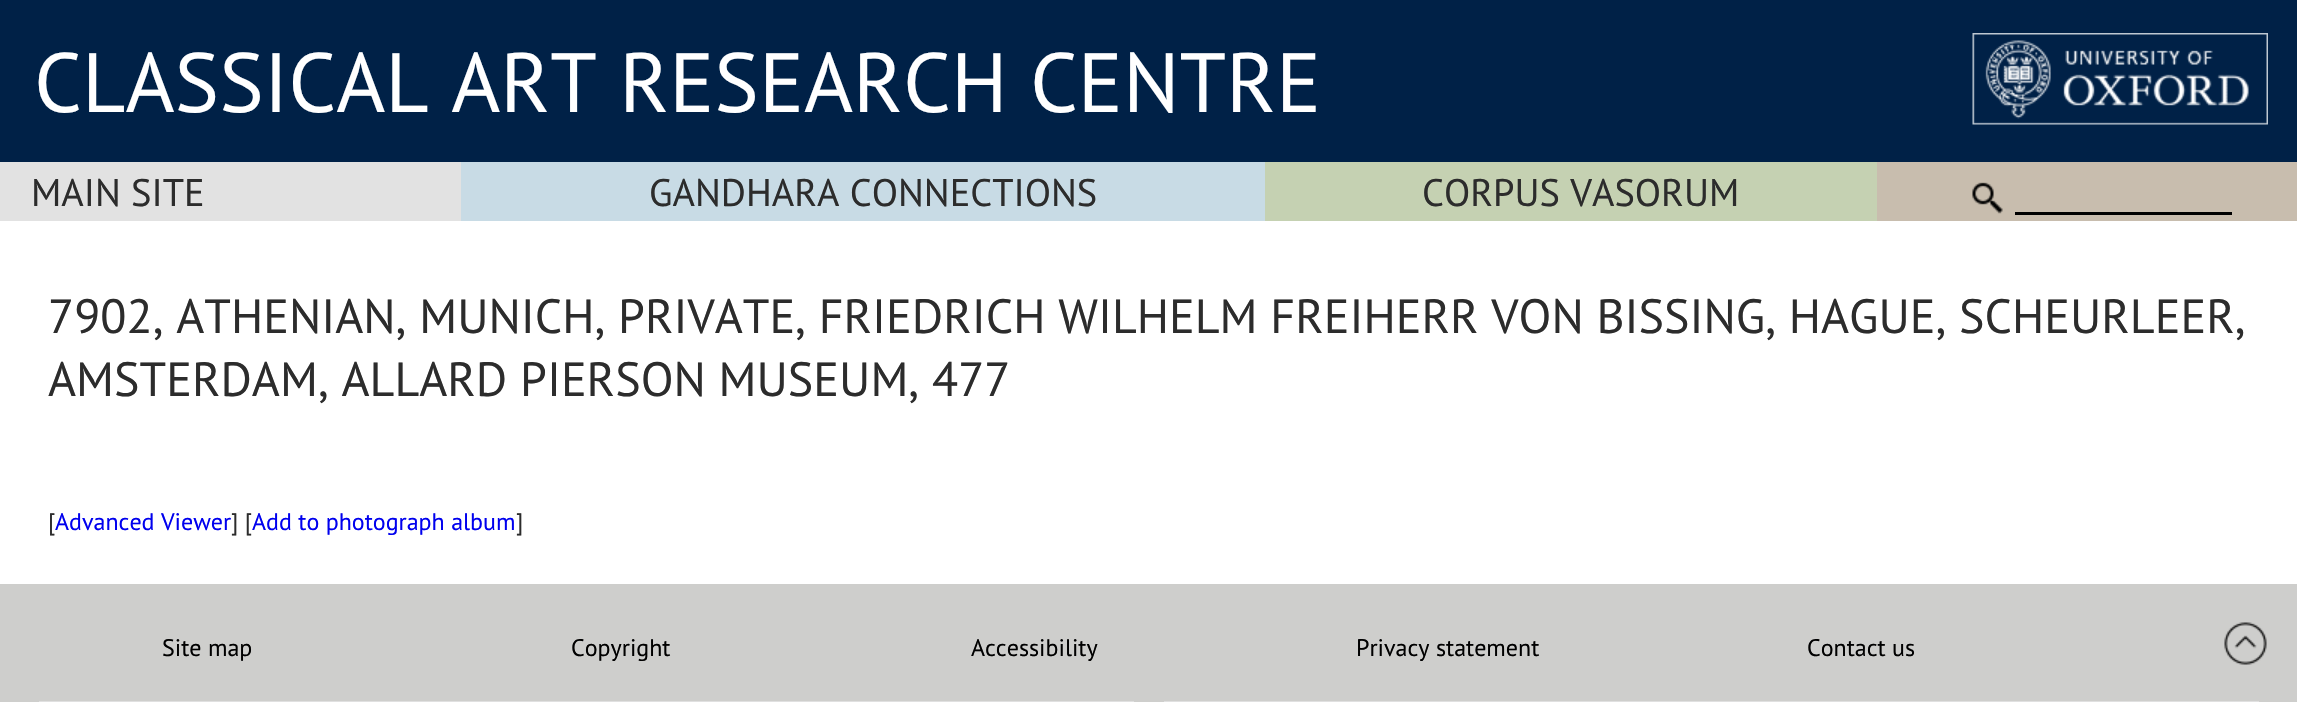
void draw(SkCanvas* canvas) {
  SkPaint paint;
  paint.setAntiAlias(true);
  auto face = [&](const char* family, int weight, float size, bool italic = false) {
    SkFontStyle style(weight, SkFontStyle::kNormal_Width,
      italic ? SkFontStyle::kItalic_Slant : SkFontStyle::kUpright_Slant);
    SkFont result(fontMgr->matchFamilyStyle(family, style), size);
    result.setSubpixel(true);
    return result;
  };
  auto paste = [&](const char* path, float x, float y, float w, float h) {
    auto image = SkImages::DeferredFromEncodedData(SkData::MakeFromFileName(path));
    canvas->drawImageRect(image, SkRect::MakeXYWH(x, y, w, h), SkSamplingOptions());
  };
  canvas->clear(0xffffffff);
  paint.setColor(0xff002147);
  canvas->drawRect(SkRect::MakeXYWH(0, 0, 2297, 162), paint);
  paste("img/1.png", 1972, 33, 296, 92);
  {
    const struct { float x, y, w, h; SkColor color; } items[] = {
      {0, 162, 461, 59, 0xffe2e2e2},
      {461, 162, 804, 59, 0xffc8dbe5},
      {1265, 162, 612, 59, 0xffc5d1b2},
      {1877, 162, 420, 59, 0xffc8bdae},
    };
    for (auto [x, y, w, h, color] : items) {
      paint.setColor(color);
      canvas->drawRect(SkRect::MakeXYWH(x, y, w, h), paint);
    }
  }
  paste("img/2.png", 1972, 182, 31, 32);
  paint.setColor(0xff000000);
  canvas->drawRect(SkRect::MakeXYWH(2015, 212, 217, 3), paint);
  paint.setColor(0xffcececc);
  canvas->drawRect(SkRect::MakeXYWH(0, 584, 2297, 118), paint);
  paint.setStroke(true);
  paint.setStrokeWidth(2);
  paint.setColor(0xffe0e0e0);
  canvas->drawRect(SkRect::MakeXYWH(40, 702, 1093, 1), paint);
  canvas->drawRect(SkRect::MakeXYWH(1165, 702, 1093, 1), paint);
  paste("img/3.png", 2224, 622, 43, 43);
  auto f0 = face("PT Sans", 400, 84);
  paint.setStroke(false);
  paint.setColor(0xffffffff);
  canvas->drawString("CLASSICAL ART RESEARCH CENTRE", 34, 112, f0, paint);
  auto f1 = face("PT Sans", 400, 38.4f);
  paint.setColor(0xff2c2c2c);
  {
    const struct { const char* s; float x, y; } items[] = {
      {"MAIN SITE", 31, 206},
      {"GANDHARA CONNECTIONS", 649, 206},
      {"CORPUS VASORUM", 1422, 206},
    };
    for (auto [s, x, y] : items) {
      canvas->drawString(s, x, y, f1, paint);
    }
  }
  auto f2 = face("PT Sans", 400, 48);
  canvas->drawString("7902, ATHENIAN, MUNICH, PRIVATE, FRIEDRICH WILHELM FREIHERR VON BISSING, HAGUE, SCHEURLEER,", 48, 333, f2, paint);
  canvas->drawString("AMSTERDAM, ALLARD PIERSON MUSEUM, 477", 48, 396, f2, paint);
  auto f3 = face("PT Sans", 400, 24);
  canvas->drawString("[", 48, 530, f3, paint);
  paint.setColor(0xff0000ee);
  canvas->drawString("Advanced Viewer", 55, 530, f3, paint);
  paint.setColor(0xff2c2c2c);
  canvas->drawString("] [", 231, 530, f3, paint);
  paint.setColor(0xff0000ee);
  canvas->drawString("Add to photograph album", 252, 530, f3, paint);
  paint.setColor(0xff2c2c2c);
  canvas->drawString("]", 516, 530, f3, paint);
  paint.setColor(0xff000000);
  {
    const struct { const char* s; float x, y; } items[] = {
      {"Site map", 162, 656},
      {"Copyright", 571, 656},
      {"Accessibility", 971, 656},
      {"Privacy statement", 1356, 656},
      {"Contact us", 1807, 656},
    };
    for (auto [s, x, y] : items) {
      canvas->drawString(s, x, y, f3, paint);
    }
  }
}
